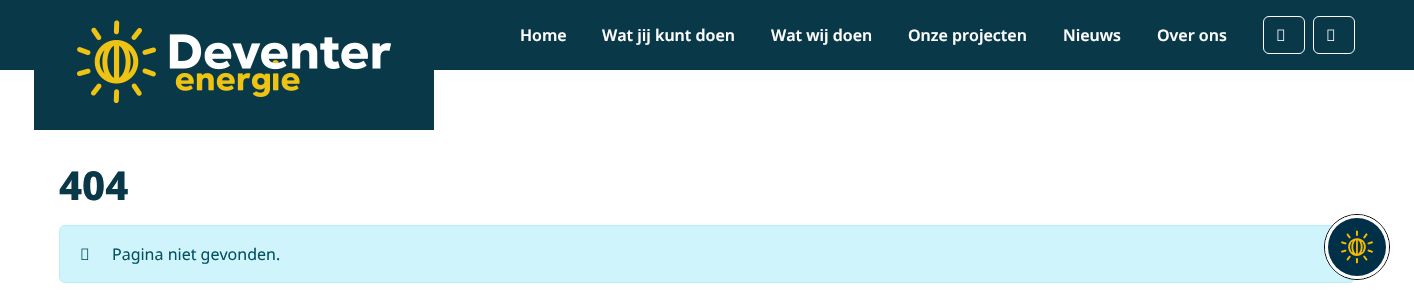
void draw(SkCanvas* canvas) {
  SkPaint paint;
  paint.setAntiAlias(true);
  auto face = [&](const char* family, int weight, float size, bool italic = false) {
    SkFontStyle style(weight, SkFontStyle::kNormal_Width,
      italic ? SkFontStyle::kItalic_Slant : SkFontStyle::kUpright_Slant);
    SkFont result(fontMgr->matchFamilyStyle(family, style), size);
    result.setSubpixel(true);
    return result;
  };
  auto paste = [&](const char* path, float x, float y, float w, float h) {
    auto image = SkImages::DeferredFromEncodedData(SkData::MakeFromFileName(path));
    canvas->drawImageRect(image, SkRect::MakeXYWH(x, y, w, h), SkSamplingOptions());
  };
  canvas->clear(0xffffffff);
  paint.setColor(0xff093848);
  canvas->drawRect(SkRect::MakeXYWH(0, 0, 1414, 70), paint);
  canvas->drawRect(SkRect::MakeXYWH(34, 70, 400, 60), paint);
  paste("img/1.png", 77, 20, 315, 84);
  paint.setStroke(true);
  paint.setStrokeWidth(1);
  paint.setColor(0xffffffff);
  canvas->drawRoundRect(SkRect::MakeXYWH(1263.5f, 16.5f, 41, 37), 5.5f, 5.5f, paint);
  paste("img/2.png", 1277, 29, 8, 12);
  canvas->drawRoundRect(SkRect::MakeXYWH(1313.5f, 16.5f, 41, 37), 5.5f, 5.5f, paint);
  paste("img/2.png", 1327, 29, 8, 12);
  paint.setStroke(false);
  paint.setColor(0xffcff4fc);
  canvas->drawRoundRect(SkRect::MakeXYWH(59.5f, 225.5f, 1295, 57), 5.5f, 5.5f, paint);
  paint.setStroke(true);
  paint.setColor(0xffb6effb);
  canvas->drawRoundRect(SkRect::MakeXYWH(59.5f, 225.5f, 1295, 57), 5.5f, 5.5f, paint);
  paste("img/3.png", 81, 248, 8, 12);
  paint.setColor(0xff000000);
  canvas->drawCircle(1357, 247, 32.5f, paint);
  paint.setStroke(false);
  paint.setColor(0xffffffff);
  canvas->drawCircle(1357, 247, 32, paint);
  paste("img/4.png", 1328, 218, 58, 58);
  auto f0 = face("Noto Sans", 600, 16);
  {
    const struct { const char* s; float x, y; } items[] = {
      {"Home", 520, 41},
      {"Wat jij kunt doen", 602, 41},
      {"Wat wij doen", 771, 41},
      {"Onze projecten", 908, 41},
      {"Nieuws", 1063, 41},
      {"Over ons", 1157, 41},
    };
    for (auto [s, x, y] : items) {
      canvas->drawString(s, x, y, f0, paint);
    }
  }
  auto f1 = face("Noto Sans", 800, 40);
  paint.setColor(0xff093848);
  canvas->drawString("404", 59, 200, f1, paint);
  auto f2 = face("Noto Sans", 400, 16);
  paint.setColor(0xff055160);
  canvas->drawString("Pagina niet gevonden.", 112, 260, f2, paint);
}
